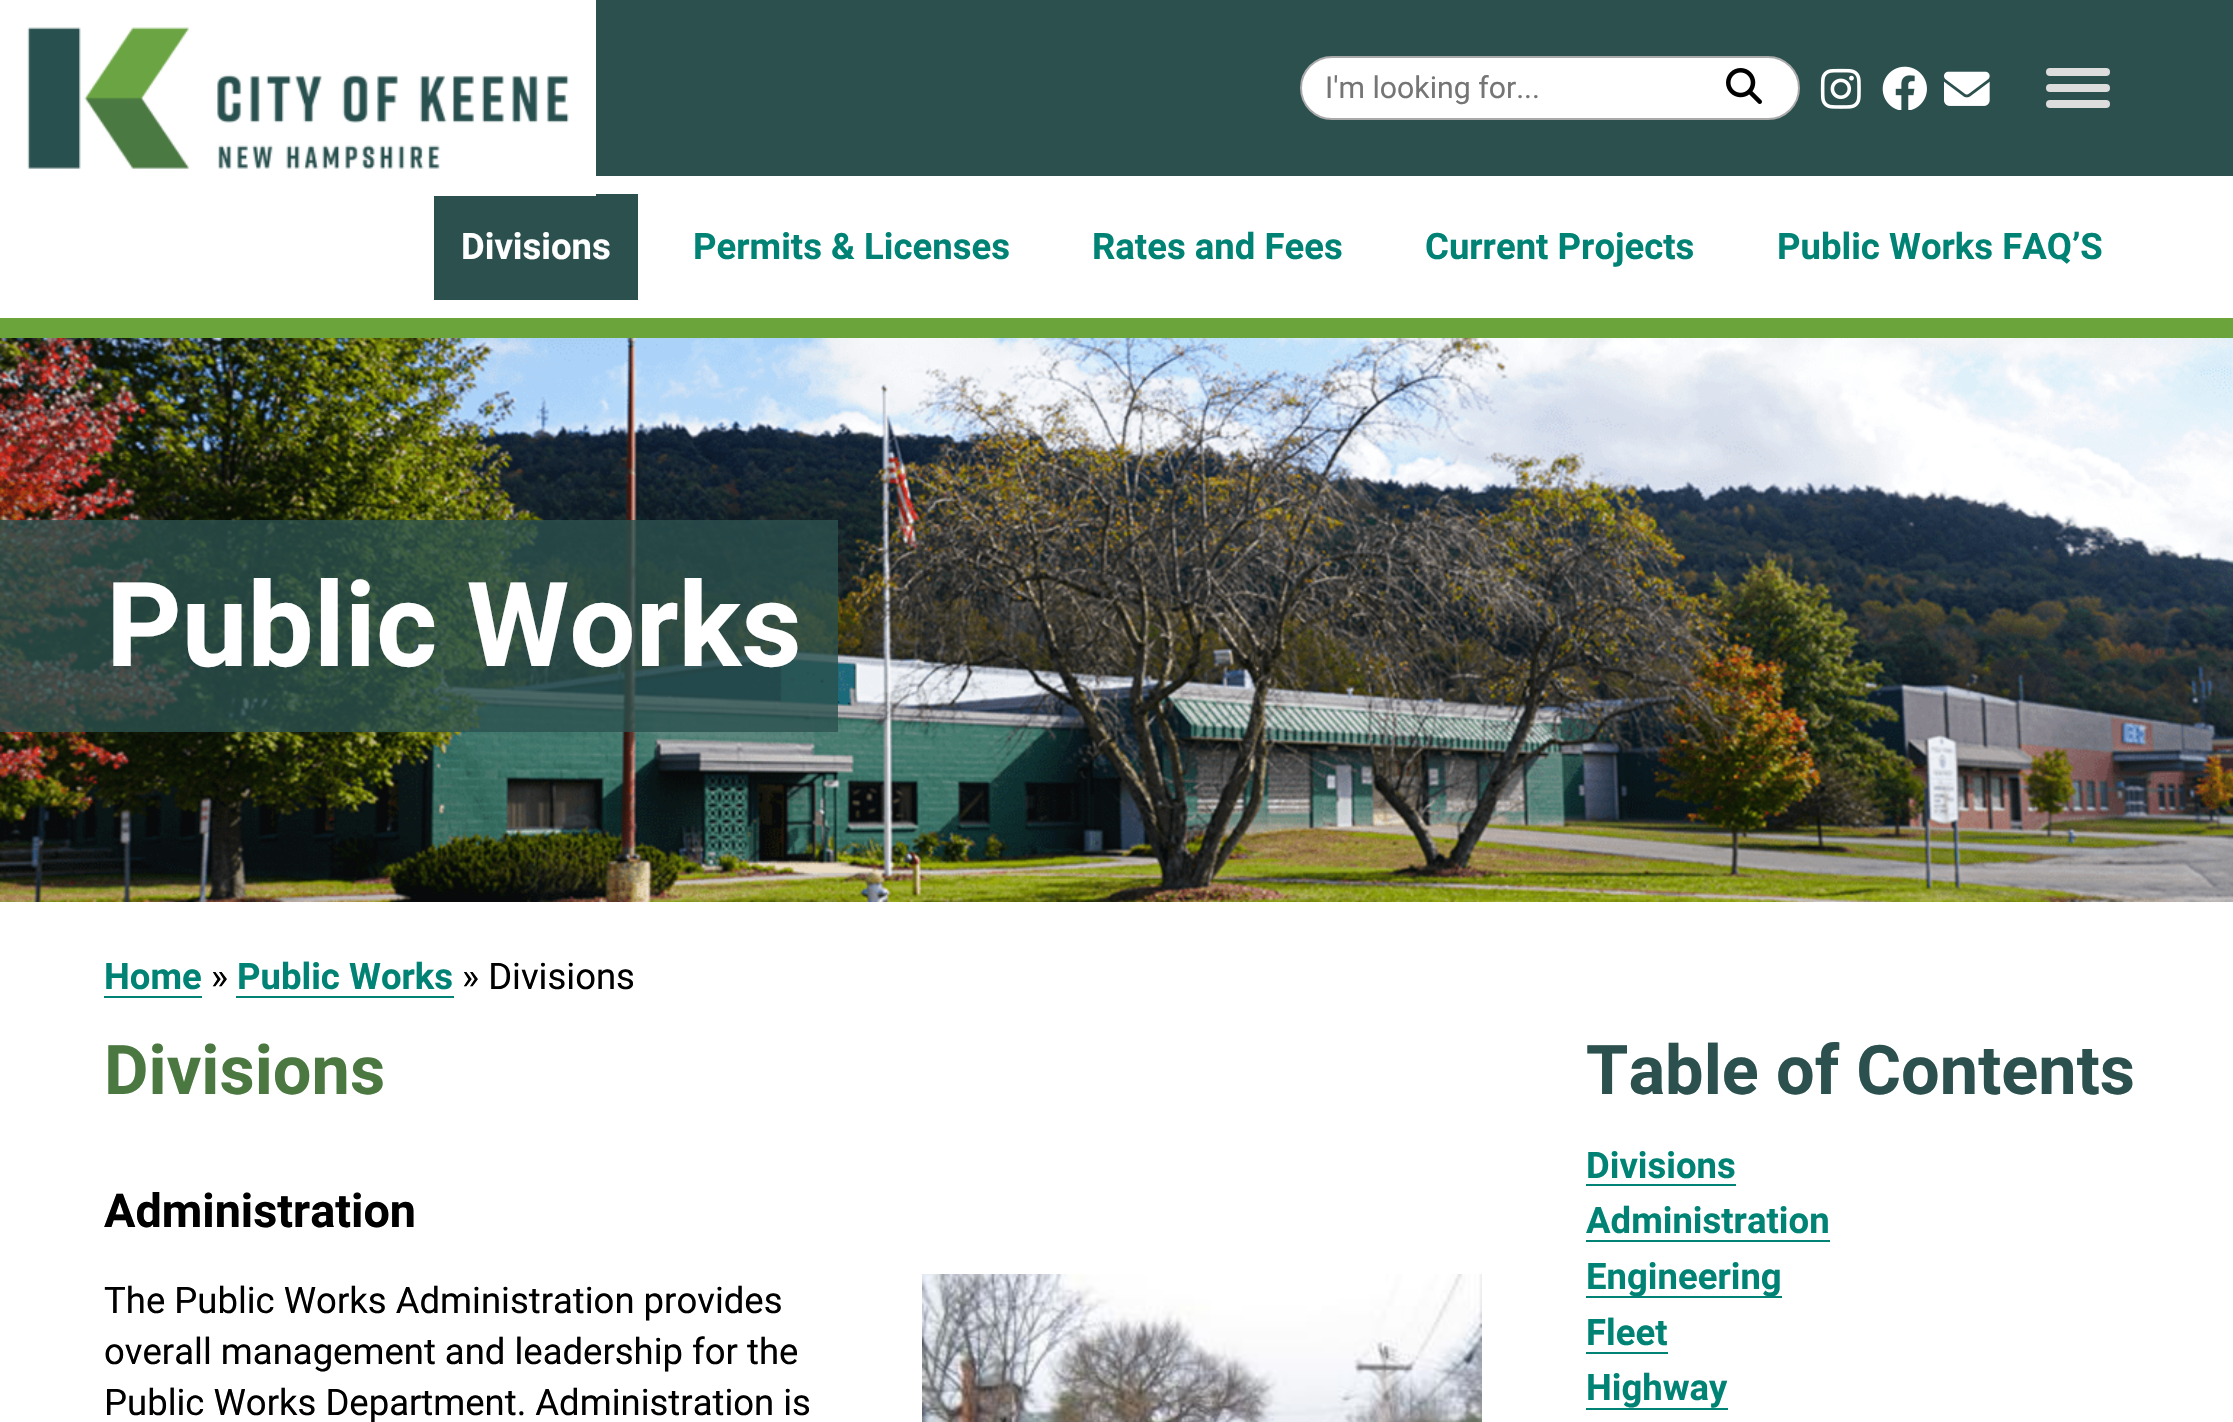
void draw(SkCanvas* canvas) {
  SkPaint paint;
  paint.setAntiAlias(true);
  auto face = [&](const char* family, int weight, float size, bool italic = false) {
    SkFontStyle style(weight, SkFontStyle::kNormal_Width,
      italic ? SkFontStyle::kItalic_Slant : SkFontStyle::kUpright_Slant);
    SkFont result(fontMgr->matchFamilyStyle(family, style), size);
    result.setSubpixel(true);
    return result;
  };
  auto paste = [&](const char* path, float x, float y, float w, float h) {
    auto image = SkImages::DeferredFromEncodedData(SkData::MakeFromFileName(path));
    canvas->drawImageRect(image, SkRect::MakeXYWH(x, y, w, h), SkSamplingOptions());
  };
  canvas->clear(0xffffffff);
  paint.setColor(0xff2b504e);
  canvas->drawRect(SkRect::MakeXYWH(596, 0, 1637, 176), paint);
  paste("img/1.png", 27, 27, 542, 142);
  canvas->drawRect(SkRect::MakeXYWH(434, 194, 204, 106), paint);
  paint.setColor(0xffffffff);
  canvas->drawRect(SkRect::MakeXYWH(434, 194, 162, 2), paint);
  canvas->drawRoundRect(SkRect::MakeXYWH(1301, 57, 498, 62), 31, 31, paint);
  paint.setStroke(true);
  paint.setStrokeWidth(2);
  paint.setColor(0xffaaaaaa);
  canvas->drawRoundRect(SkRect::MakeXYWH(1301, 57, 498, 62), 31, 31, paint);
  paste("img/2.png", 1726, 68, 36, 36);
  paste("img/3.png", 1820, 68, 41, 41);
  paste("img/4.png", 1882, 66, 45, 44);
  paste("img/5.png", 1944, 71, 46, 35);
  paint.setStroke(false);
  paint.setColor(0xffdddddd);
  canvas->drawRoundRect(SkRect::MakeXYWH(2046, 68, 64, 8), 4, 4, paint);
  canvas->drawRoundRect(SkRect::MakeXYWH(2046, 84, 64, 8), 4, 4, paint);
  canvas->drawRoundRect(SkRect::MakeXYWH(2046, 100, 64, 8), 4, 4, paint);
  paint.setColor(0xff6ba43a);
  canvas->drawRect(SkRect::MakeXYWH(0, 318, 2233, 20), paint);
  paste("img/6.png", 0, 338, 2233, 564);
  {
    const struct { float x, y, w, h; SkColor color; } items[] = {
      {0, 520, 838, 212, 0xcc2b504e},
      {104, 996, 98, 2, 0xff008375},
      {236, 996, 218, 2, 0xff008375},
    };
    for (auto [x, y, w, h, color] : items) {
      paint.setColor(color);
      canvas->drawRect(SkRect::MakeXYWH(x, y, w, h), paint);
    }
  }
  paste("img/7.png", 922, 1274, 560, 148);
  {
    const struct { float x, y, w, h; SkColor color; } items[] = {
      {1586, 1184, 150, 2, 0xff008375},
      {1586, 1240, 244, 2, 0xff008375},
      {1586, 1296, 196, 2, 0xff008375},
      {1586, 1352, 82, 2, 0xff008375},
      {1586, 1408, 142, 2, 0xff008375},
    };
    for (auto [x, y, w, h, color] : items) {
      paint.setColor(color);
      canvas->drawRect(SkRect::MakeXYWH(x, y, w, h), paint);
    }
  }
  auto f0 = face("Roboto", 400, 30.25f);
  paint.setColor(0xff757575);
  canvas->drawString("I'm looking for...", 1325, 98, f0, paint);
  auto f1 = face("Roboto", 700, 36.5f);
  paint.setColor(0xffffffff);
  canvas->drawString("Divisions", 461, 259, f1, paint);
  paint.setColor(0xff008375);
  {
    const struct { const char* s; float x, y; } items[] = {
      {"Permits & Licenses", 693, 259},
      {"Rates and Fees", 1092, 259},
      {"Current Projects", 1425, 259},
      {"Public Works FAQ’S", 1777, 259},
    };
    for (auto [s, x, y] : items) {
      canvas->drawString(s, x, y, f1, paint);
    }
  }
  auto f2 = face("Roboto", 700, 117.5f);
  paint.setColor(0xffffffff);
  canvas->drawString("Public Works", 106, 666, f2, paint);
  paint.setColor(0xff008375);
  canvas->drawString("Home", 104, 989, f1, paint);
  auto f3 = face("Roboto", 400, 36.5f);
  paint.setColor(0xff000000);
  canvas->drawString("»", 211, 989, f3, paint);
  paint.setColor(0xff008375);
  canvas->drawString("Public Works", 237, 989, f1, paint);
  paint.setColor(0xff000000);
  canvas->drawString("» Divisions", 462, 989, f3, paint);
  auto f4 = face("Roboto", 700, 68.5f);
  paint.setColor(0xff4b7841);
  canvas->drawString("Divisions", 104, 1094, f4, paint);
  auto f5 = face("Roboto", 700, 46.75f);
  paint.setColor(0xff000000);
  canvas->drawString("Administration", 104, 1227, f5, paint);
  {
    const struct { const char* s; float x, y; } items[] = {
      {"The Public Works Administration provides", 104, 1313},
      {"overall management and leadership for the", 104, 1364},
      {"Public Works Department. Administration is", 104, 1415},
    };
    for (auto [s, x, y] : items) {
      canvas->drawString(s, x, y, f3, paint);
    }
  }
  paint.setColor(0xff2b504e);
  canvas->drawString("Table of Contents", 1586, 1094, f4, paint);
  paint.setColor(0xff008375);
  {
    const struct { const char* s; float x, y; } items[] = {
      {"Divisions", 1586, 1178},
      {"Administration", 1586, 1233},
      {"Engineering", 1586, 1289},
      {"Fleet", 1586, 1345},
      {"Highway", 1586, 1400},
    };
    for (auto [s, x, y] : items) {
      canvas->drawString(s, x, y, f1, paint);
    }
  }
}
